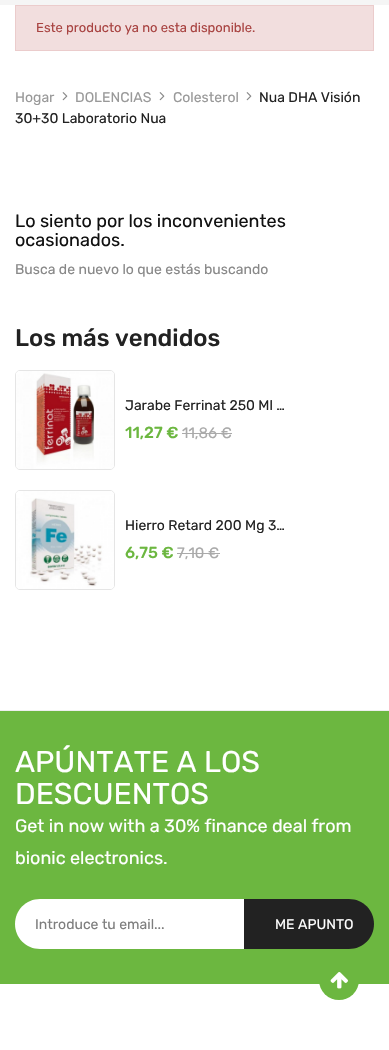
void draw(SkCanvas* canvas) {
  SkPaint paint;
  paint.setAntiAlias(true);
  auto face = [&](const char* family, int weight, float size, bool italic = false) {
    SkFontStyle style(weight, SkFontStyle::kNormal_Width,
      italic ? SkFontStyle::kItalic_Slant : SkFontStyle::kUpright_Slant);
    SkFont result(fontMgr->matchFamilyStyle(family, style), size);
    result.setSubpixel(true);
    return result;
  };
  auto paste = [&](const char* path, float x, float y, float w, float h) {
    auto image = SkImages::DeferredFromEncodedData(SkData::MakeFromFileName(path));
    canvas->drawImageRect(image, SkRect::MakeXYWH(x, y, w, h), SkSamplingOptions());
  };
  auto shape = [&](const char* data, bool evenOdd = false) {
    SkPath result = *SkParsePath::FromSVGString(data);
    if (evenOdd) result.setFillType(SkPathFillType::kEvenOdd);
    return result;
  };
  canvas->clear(0xffffffff);
  paint.setColor(0xfff5f5f5);
  canvas->drawRect(SkRect::MakeXYWH(0, 0, 389, 5), paint);
  paint.setColor(0xfff2dede);
  canvas->drawRect(SkRect::MakeXYWH(15.5f, 5.5f, 358, 45), paint);
  paint.setStroke(true);
  paint.setStrokeWidth(1);
  paint.setColor(0xffebcccc);
  canvas->drawRect(SkRect::MakeXYWH(15.5f, 5.5f, 358, 45), paint);
  paste("img/1.png", 62, 92, 6, 9);
  paste("img/1.png", 159, 92, 6, 9);
  paste("img/1.png", 246, 92, 6, 9);
  paint.setColor(0xffe5e5e5);
  canvas->drawRoundRect(SkRect::MakeXYWH(15.5f, 370.5f, 99, 99), 4.5f, 4.5f, paint);
  paste("img/2.png", 16, 371, 98, 98);
  paint.setStroke(false);
  paint.setColor(0xffaaaaaa);
  canvas->drawRect(SkRect::MakeXYWH(182, 433, 50, 1), paint);
  paint.setStroke(true);
  paint.setColor(0xffe5e5e5);
  canvas->drawRoundRect(SkRect::MakeXYWH(15.5f, 490.5f, 99, 99), 4.5f, 4.5f, paint);
  paste("img/3.png", 16, 491, 98, 98);
  paint.setStroke(false);
  {
    const struct { float x, y, w, h; SkColor color; } items[] = {
      {177, 553, 43, 1, 0xffaaaaaa},
      {0, 710, 389, 1, 0xffeeeeee},
      {0, 711, 389, 273, 0xff6cb740},
    };
    for (auto [x, y, w, h, color] : items) {
      paint.setColor(color);
      canvas->drawRect(SkRect::MakeXYWH(x, y, w, h), paint);
    }
  }
  paint.setColor(0xffffffff);
  canvas->drawPath(shape("M40 899H244V949H40C26 949 15 938 15 924C15 910 26 899 40 899Z"), paint);
  paint.setColor(0xff222222);
  canvas->drawPath(shape("M244 899H349C363 899 374 910 374 924C374 938 363 949 349 949H244Z"), paint);
  paint.setColor(0xff6cb740);
  canvas->drawCircle(339, 980, 20, paint);
  paste("img/4.png", 330, 972, 18, 17);
  auto f0 = face("Rubik", 400, 13);
  paint.setColor(0xffa94442);
  canvas->drawString("Este producto ya no esta disponible.", 36, 32, f0, paint);
  auto f1 = face("Rubik", 400, 14);
  paint.setColor(0xff999999);
  {
    const struct { const char* s; float x, y; } items[] = {
      {"Hogar", 15, 102},
      {"DOLENCIAS", 75, 102},
      {"Colesterol", 173, 102},
    };
    for (auto [s, x, y] : items) {
      canvas->drawString(s, x, y, f1, paint);
    }
  }
  paint.setColor(0xff222222);
  canvas->drawString("Nua DHA Visión", 259, 102, f1, paint);
  canvas->drawString("30+30 Laboratorio Nua", 15, 123, f1, paint);
  auto f2 = face("Rubik", 400, 18);
  paint.setColor(0xff111111);
  canvas->drawString("Lo siento por los inconvenientes", 15, 227, f2, paint);
  canvas->drawString("ocasionados.", 15, 246, f2, paint);
  paint.setColor(0xff888888);
  canvas->drawString("Busca de nuevo lo que estás buscando", 15, 274, f1, paint);
  auto f3 = face("Rubik", 500, 24);
  paint.setColor(0xff222222);
  canvas->drawString("Los más vendidos", 15, 346, f3, paint);
  canvas->drawString("Jarabe Ferrinat 250 Ml …", 125, 410, f1, paint);
  auto f4 = face("Rubik", 500, 16);
  paint.setColor(0xff6cb740);
  canvas->drawString("11,27 €", 125, 438, f4, paint);
  auto f5 = face("Rubik", 400, 15);
  paint.setColor(0xffaaaaaa);
  canvas->drawString("11,86 €", 182, 438, f5, paint);
  paint.setColor(0xff222222);
  canvas->drawString("Hierro Retard 200 Mg 3…", 125, 530, f1, paint);
  paint.setColor(0xff6cb740);
  canvas->drawString("6,75 €", 125, 558, f4, paint);
  paint.setColor(0xffaaaaaa);
  canvas->drawString("7,10 €", 177, 558, f5, paint);
  auto f6 = face("Rubik", 400, 30);
  paint.setColor(0xffffffff);
  canvas->drawString("APÚNTATE A LOS", 15, 772, f6, paint);
  canvas->drawString("DESCUENTOS", 15, 804, f6, paint);
  canvas->drawString("Get in now with a 30% finance deal from", 15, 832, f2, paint);
  canvas->drawString("bionic electronics.", 15, 864, f2, paint);
  paint.setColor(0xff7e7e7e);
  canvas->drawString("Introduce tu email...", 35, 929, f1, paint);
  paint.setColor(0xffffffff);
  canvas->drawString("ME APUNTO", 275, 929, f1, paint);
}
